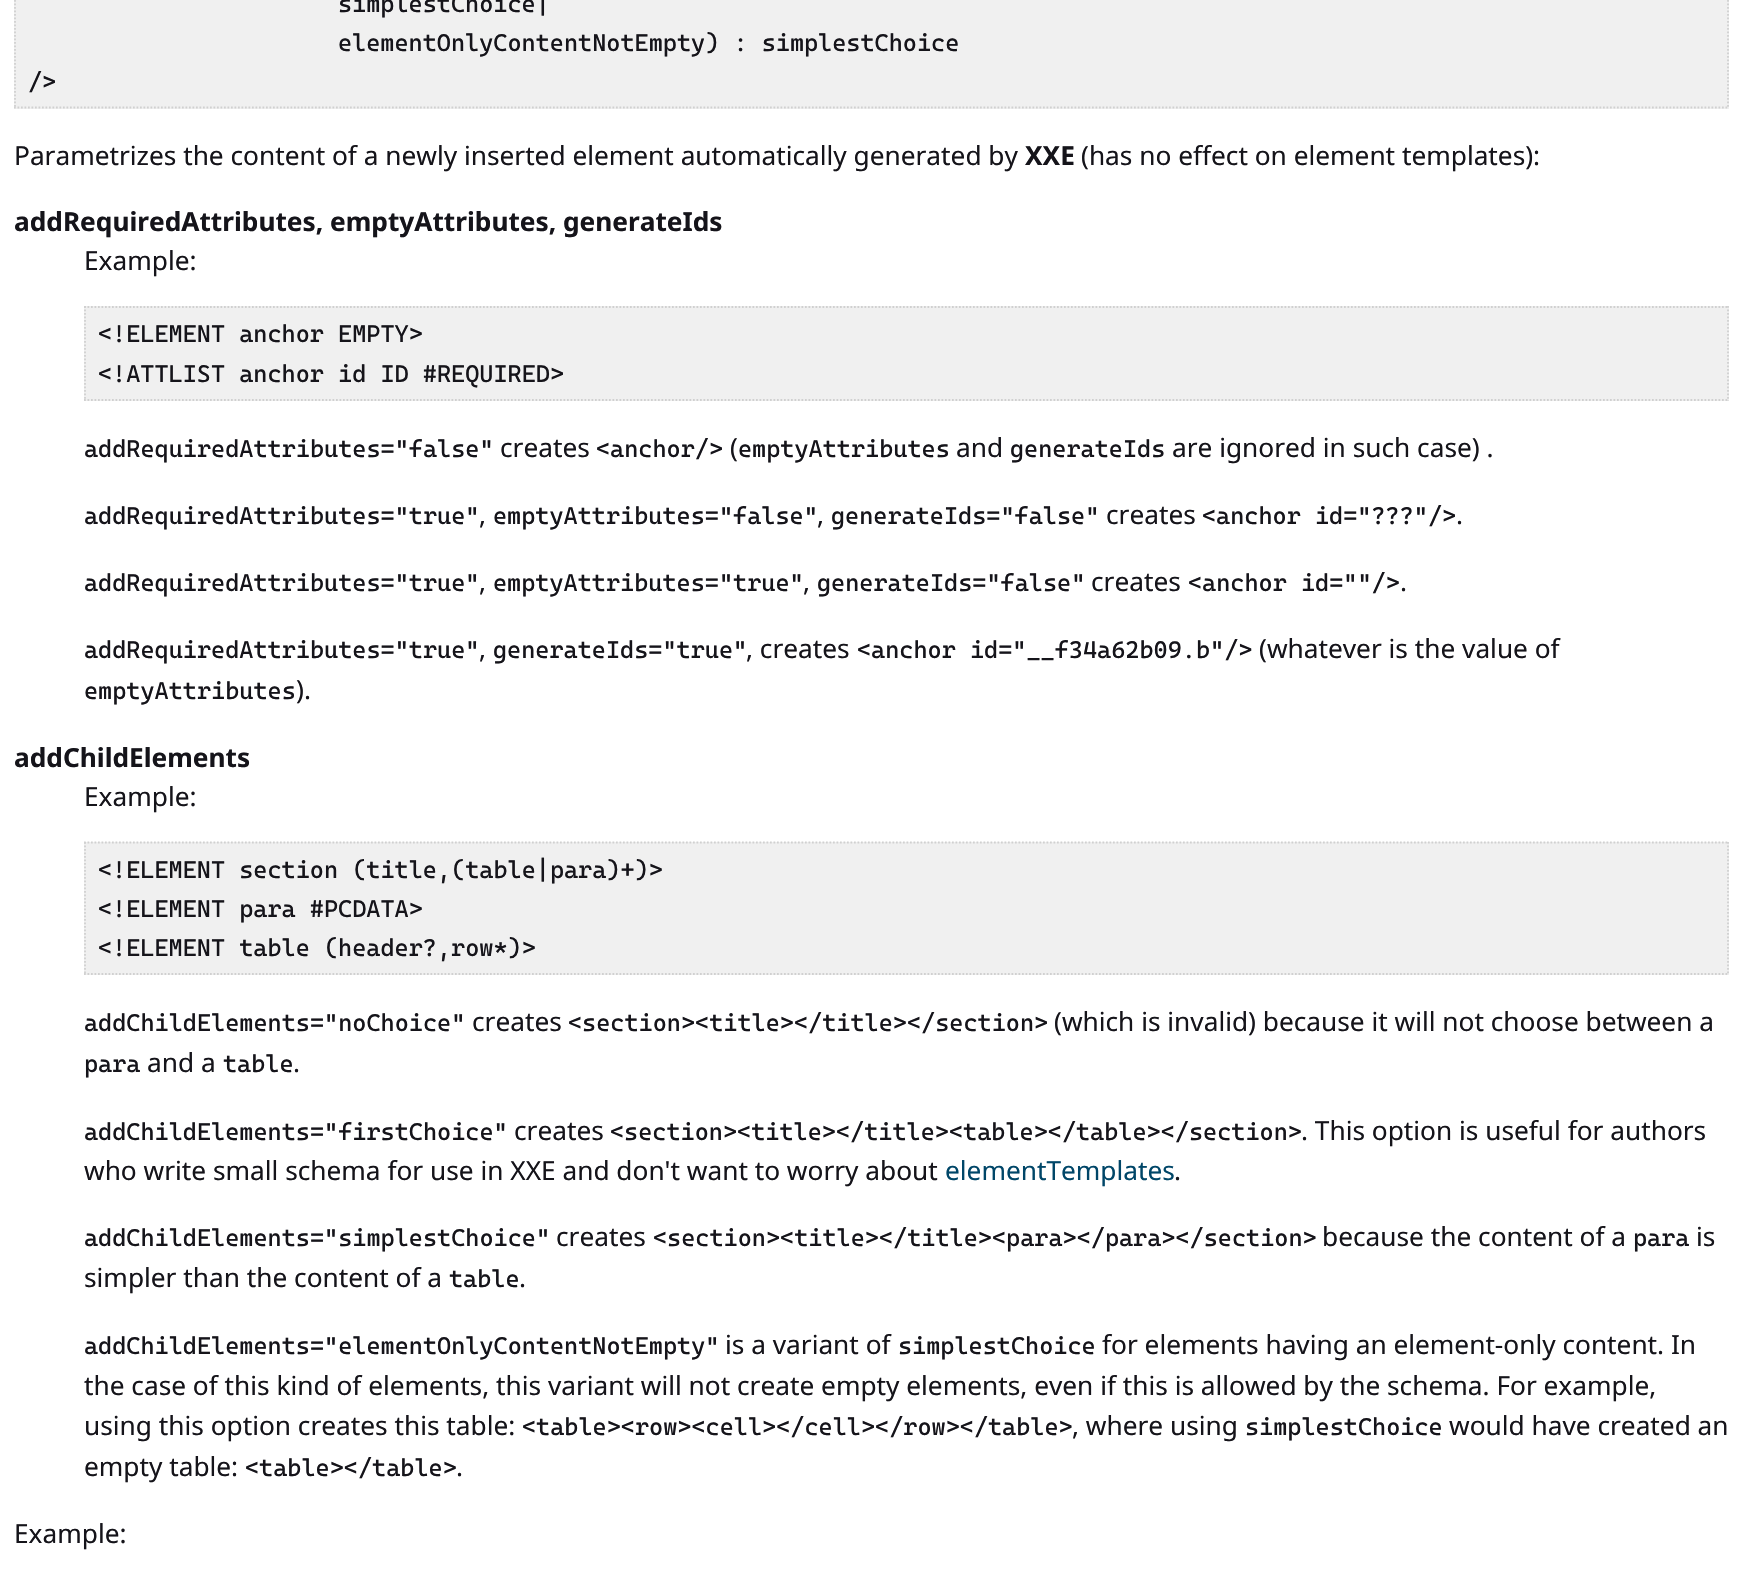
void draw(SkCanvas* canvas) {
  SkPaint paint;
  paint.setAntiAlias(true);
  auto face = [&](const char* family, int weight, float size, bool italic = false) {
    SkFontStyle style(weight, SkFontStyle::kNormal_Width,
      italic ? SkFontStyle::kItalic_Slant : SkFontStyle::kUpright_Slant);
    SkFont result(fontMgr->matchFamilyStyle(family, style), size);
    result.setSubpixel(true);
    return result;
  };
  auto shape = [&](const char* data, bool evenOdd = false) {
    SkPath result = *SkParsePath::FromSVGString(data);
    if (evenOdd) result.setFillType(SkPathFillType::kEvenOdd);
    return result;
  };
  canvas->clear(0xffffffff);
  paint.setColor(0xfff0f0f0);
  canvas->drawRect(SkRect::MakeXYWH(14, 0, 1715, 109), paint);
  paint.setStroke(true);
  paint.setStrokeWidth(1.8f);
  paint.setColor(0xffd0d0d0);
  paint.setPathEffect(SkDashPathEffect::Make({{1.75f, 1.75f}}, 0));
  canvas->drawPath(shape("M1728-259V108.5"), paint);
  paint.setPathEffect(nullptr);
  paint.setPathEffect(SkDashPathEffect::Make({{1.75f, 1.75f}}, 0));
  canvas->drawPath(shape("M14 107.5H1729"), paint);
  paint.setPathEffect(nullptr);
  paint.setPathEffect(SkDashPathEffect::Make({{1.75f, 1.75f}}, 0));
  canvas->drawPath(shape("M15-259V108.5"), paint);
  paint.setPathEffect(nullptr);
  paint.setStroke(false);
  paint.setColor(0xfff0f0f0);
  canvas->drawRect(SkRect::MakeXYWH(84, 306, 1645, 95), paint);
  paint.setStroke(true);
  paint.setColor(0xffd0d0d0);
  paint.setPathEffect(SkDashPathEffect::Make({{1.75f, 1.75f}}, 0));
  canvas->drawPath(shape("M84 307H1729"), paint);
  paint.setPathEffect(nullptr);
  paint.setPathEffect(SkDashPathEffect::Make({{1.75f, 1.75f}}, 0));
  canvas->drawPath(shape("M1728 306V401"), paint);
  paint.setPathEffect(nullptr);
  paint.setPathEffect(SkDashPathEffect::Make({{1.75f, 1.75f}}, 0));
  canvas->drawPath(shape("M84 400H1729"), paint);
  paint.setPathEffect(nullptr);
  paint.setPathEffect(SkDashPathEffect::Make({{1.75f, 1.75f}}, 0));
  canvas->drawPath(shape("M85 306V401"), paint);
  paint.setPathEffect(nullptr);
  paint.setStroke(false);
  paint.setColor(0xfff0f0f0);
  canvas->drawRect(SkRect::MakeXYWH(84, 842, 1645, 133), paint);
  paint.setStroke(true);
  paint.setColor(0xffd0d0d0);
  paint.setPathEffect(SkDashPathEffect::Make({{1.75f, 1.75f}}, 0));
  canvas->drawPath(shape("M84 842.5H1729"), paint);
  paint.setPathEffect(nullptr);
  paint.setPathEffect(SkDashPathEffect::Make({{1.75f, 1.75f}}, 0));
  canvas->drawPath(shape("M1728 842V975"), paint);
  paint.setPathEffect(nullptr);
  paint.setPathEffect(SkDashPathEffect::Make({{1.75f, 1.75f}}, 0));
  canvas->drawPath(shape("M84 974H1729"), paint);
  paint.setPathEffect(nullptr);
  paint.setPathEffect(SkDashPathEffect::Make({{1.75f, 1.75f}}, 0));
  canvas->drawPath(shape("M85 842V975"), paint);
  paint.setPathEffect(nullptr);
  auto f0 = face("Cascadia Code", 400, 24.1f);
  paint.setStroke(false);
  paint.setColor(0xff15141a);
  {
    const struct { const char* s; float x, y; } items[] = {
      {"simplestChoice|", 338, 12},
      {"elementOnlyContentNotEmpty) : simplestChoice", 338, 51},
      {"/>", 28, 90},
    };
    for (auto [s, x, y] : items) {
      canvas->drawString(s, x, y, f0, paint);
    }
  }
  auto f1 = face("Noto Sans", 400, 26.25f);
  canvas->drawString("Parametrizes the content of a newly inserted element automatically generated by", 14, 165, f1, paint);
  auto f2 = face("Noto Sans", 700, 26.25f);
  canvas->drawString("XXE", 1025, 165, f2, paint);
  canvas->drawString("(has no effect on element templates):", 1081, 165, f1, paint);
  canvas->drawString("addRequiredAttributes, emptyAttributes, generateIds", 14, 231, f2, paint);
  canvas->drawString("Example:", 84, 270, f1, paint);
  {
    const struct { const char* s; float x, y; } items[] = {
      {"<!ELEMENT anchor EMPTY>", 98, 342},
      {"<!ATTLIST anchor id ID #REQUIRED>", 98, 382},
      {"addRequiredAttributes=\"false\"", 84, 457},
    };
    for (auto [s, x, y] : items) {
      canvas->drawString(s, x, y, f0, paint);
    }
  }
  canvas->drawString("creates", 500, 457, f1, paint);
  canvas->drawString("<anchor/>", 596, 457, f0, paint);
  canvas->drawString("(", 730, 457, f1, paint);
  canvas->drawString("emptyAttributes", 738, 457, f0, paint);
  canvas->drawString("and", 956, 457, f1, paint);
  canvas->drawString("generateIds", 1010, 457, f0, paint);
  canvas->drawString("are ignored in such case) .", 1172, 457, f1, paint);
  canvas->drawString("addRequiredAttributes=\"true\"", 84, 524, f0, paint);
  canvas->drawString(",", 479, 524, f1, paint);
  canvas->drawString("emptyAttributes=\"false\"", 493, 524, f0, paint);
  canvas->drawString(",", 817, 524, f1, paint);
  canvas->drawString("generateIds=\"false\"", 831, 524, f0, paint);
  canvas->drawString("creates", 1106, 524, f1, paint);
  canvas->drawString("<anchor id=\"?\077?\"/>", 1202, 524, f0, paint);
  canvas->drawString(".", 1456, 524, f1, paint);
  canvas->drawString("addRequiredAttributes=\"true\"", 84, 591, f0, paint);
  canvas->drawString(",", 479, 591, f1, paint);
  canvas->drawString("emptyAttributes=\"true\"", 493, 591, f0, paint);
  canvas->drawString(",", 803, 591, f1, paint);
  canvas->drawString("generateIds=\"false\"", 817, 591, f0, paint);
  canvas->drawString("creates", 1091, 591, f1, paint);
  canvas->drawString("<anchor id=\"\"/>", 1188, 591, f0, paint);
  canvas->drawString(".", 1400, 591, f1, paint);
  canvas->drawString("addRequiredAttributes=\"true\"", 84, 658, f0, paint);
  canvas->drawString(",", 479, 658, f1, paint);
  canvas->drawString("generateIds=\"true\"", 493, 658, f0, paint);
  canvas->drawString(", creates", 746, 658, f1, paint);
  canvas->drawString("<anchor id=\"__f34a62b09.b\"/>", 857, 658, f0, paint);
  canvas->drawString("(whatever is the value of", 1259, 658, f1, paint);
  canvas->drawString("emptyAttributes", 84, 699, f0, paint);
  canvas->drawString(").", 296, 699, f1, paint);
  canvas->drawString("addChildElements", 14, 767, f2, paint);
  canvas->drawString("Example:", 84, 806, f1, paint);
  {
    const struct { const char* s; float x, y; } items[] = {
      {"<!ELEMENT section (title,(table|para)+)>", 98, 878},
      {"<!ELEMENT para #PCDATA>", 98, 917},
      {"<!ELEMENT table (header?,row*)>", 98, 956},
      {"addChildElements=\"noChoice\"", 84, 1031},
    };
    for (auto [s, x, y] : items) {
      canvas->drawString(s, x, y, f0, paint);
    }
  }
  canvas->drawString("creates", 472, 1031, f1, paint);
  canvas->drawString("<section><title></title></section>", 568, 1031, f0, paint);
  canvas->drawString("(which is invalid) because it will not choose between a", 1054, 1031, f1, paint);
  canvas->drawString("para", 84, 1072, f0, paint);
  canvas->drawString("and a", 147, 1072, f1, paint);
  canvas->drawString("table", 223, 1072, f0, paint);
  canvas->drawString(".", 293, 1072, f1, paint);
  canvas->drawString("addChildElements=\"firstChoice\"", 84, 1140, f0, paint);
  canvas->drawString("creates", 514, 1140, f1, paint);
  canvas->drawString("<section><title></title><table></table></section>", 610, 1140, f0, paint);
  canvas->drawString(". This option is useful for authors", 1301, 1140, f1, paint);
  canvas->drawString("who write small schema for use in XXE and don't want to worry about", 84, 1180, f1, paint);
  paint.setColor(0xff004668);
  canvas->drawString("elementTemplates", 945, 1180, f1, paint);
  paint.setColor(0xff15141a);
  canvas->drawString(".", 1174, 1180, f1, paint);
  canvas->drawString("addChildElements=\"simplestChoice\"", 84, 1246, f0, paint);
  canvas->drawString("creates", 556, 1246, f1, paint);
  canvas->drawString("<section><title></title><para></para></section>", 653, 1246, f0, paint);
  canvas->drawString("because the content of a", 1322, 1246, f1, paint);
  canvas->drawString("para", 1633, 1246, f0, paint);
  canvas->drawString("is", 1696, 1246, f1, paint);
  canvas->drawString("simpler than the content of a", 84, 1287, f1, paint);
  canvas->drawString("table", 449, 1287, f0, paint);
  canvas->drawString(".", 519, 1287, f1, paint);
  canvas->drawString("addChildElements=\"elementOnlyContentNotEmpty\"", 84, 1354, f0, paint);
  canvas->drawString("is a variant of", 725, 1354, f1, paint);
  canvas->drawString("simplestChoice", 898, 1354, f0, paint);
  {
    const struct { const char* s; float x, y; } items[] = {
      {"for elements having an element-only content. In", 1102, 1354},
      {"the case of this kind of elements, this variant will not create empty elements, even if this is allowed by the schema. For example,", 84, 1395},
      {"using this option creates this table:", 84, 1435},
    };
    for (auto [s, x, y] : items) {
      canvas->drawString(s, x, y, f1, paint);
    }
  }
  canvas->drawString("<table><row><cell></cell></row></table>", 522, 1435, f0, paint);
  canvas->drawString(", where using", 1072, 1435, f1, paint);
  canvas->drawString("simplestChoice", 1245, 1435, f0, paint);
  canvas->drawString("would have created an", 1449, 1435, f1, paint);
  canvas->drawString("empty table:", 84, 1476, f1, paint);
  canvas->drawString("<table></table>", 245, 1476, f0, paint);
  canvas->drawString(".", 456, 1476, f1, paint);
  canvas->drawString("Example:", 14, 1543, f1, paint);
}
